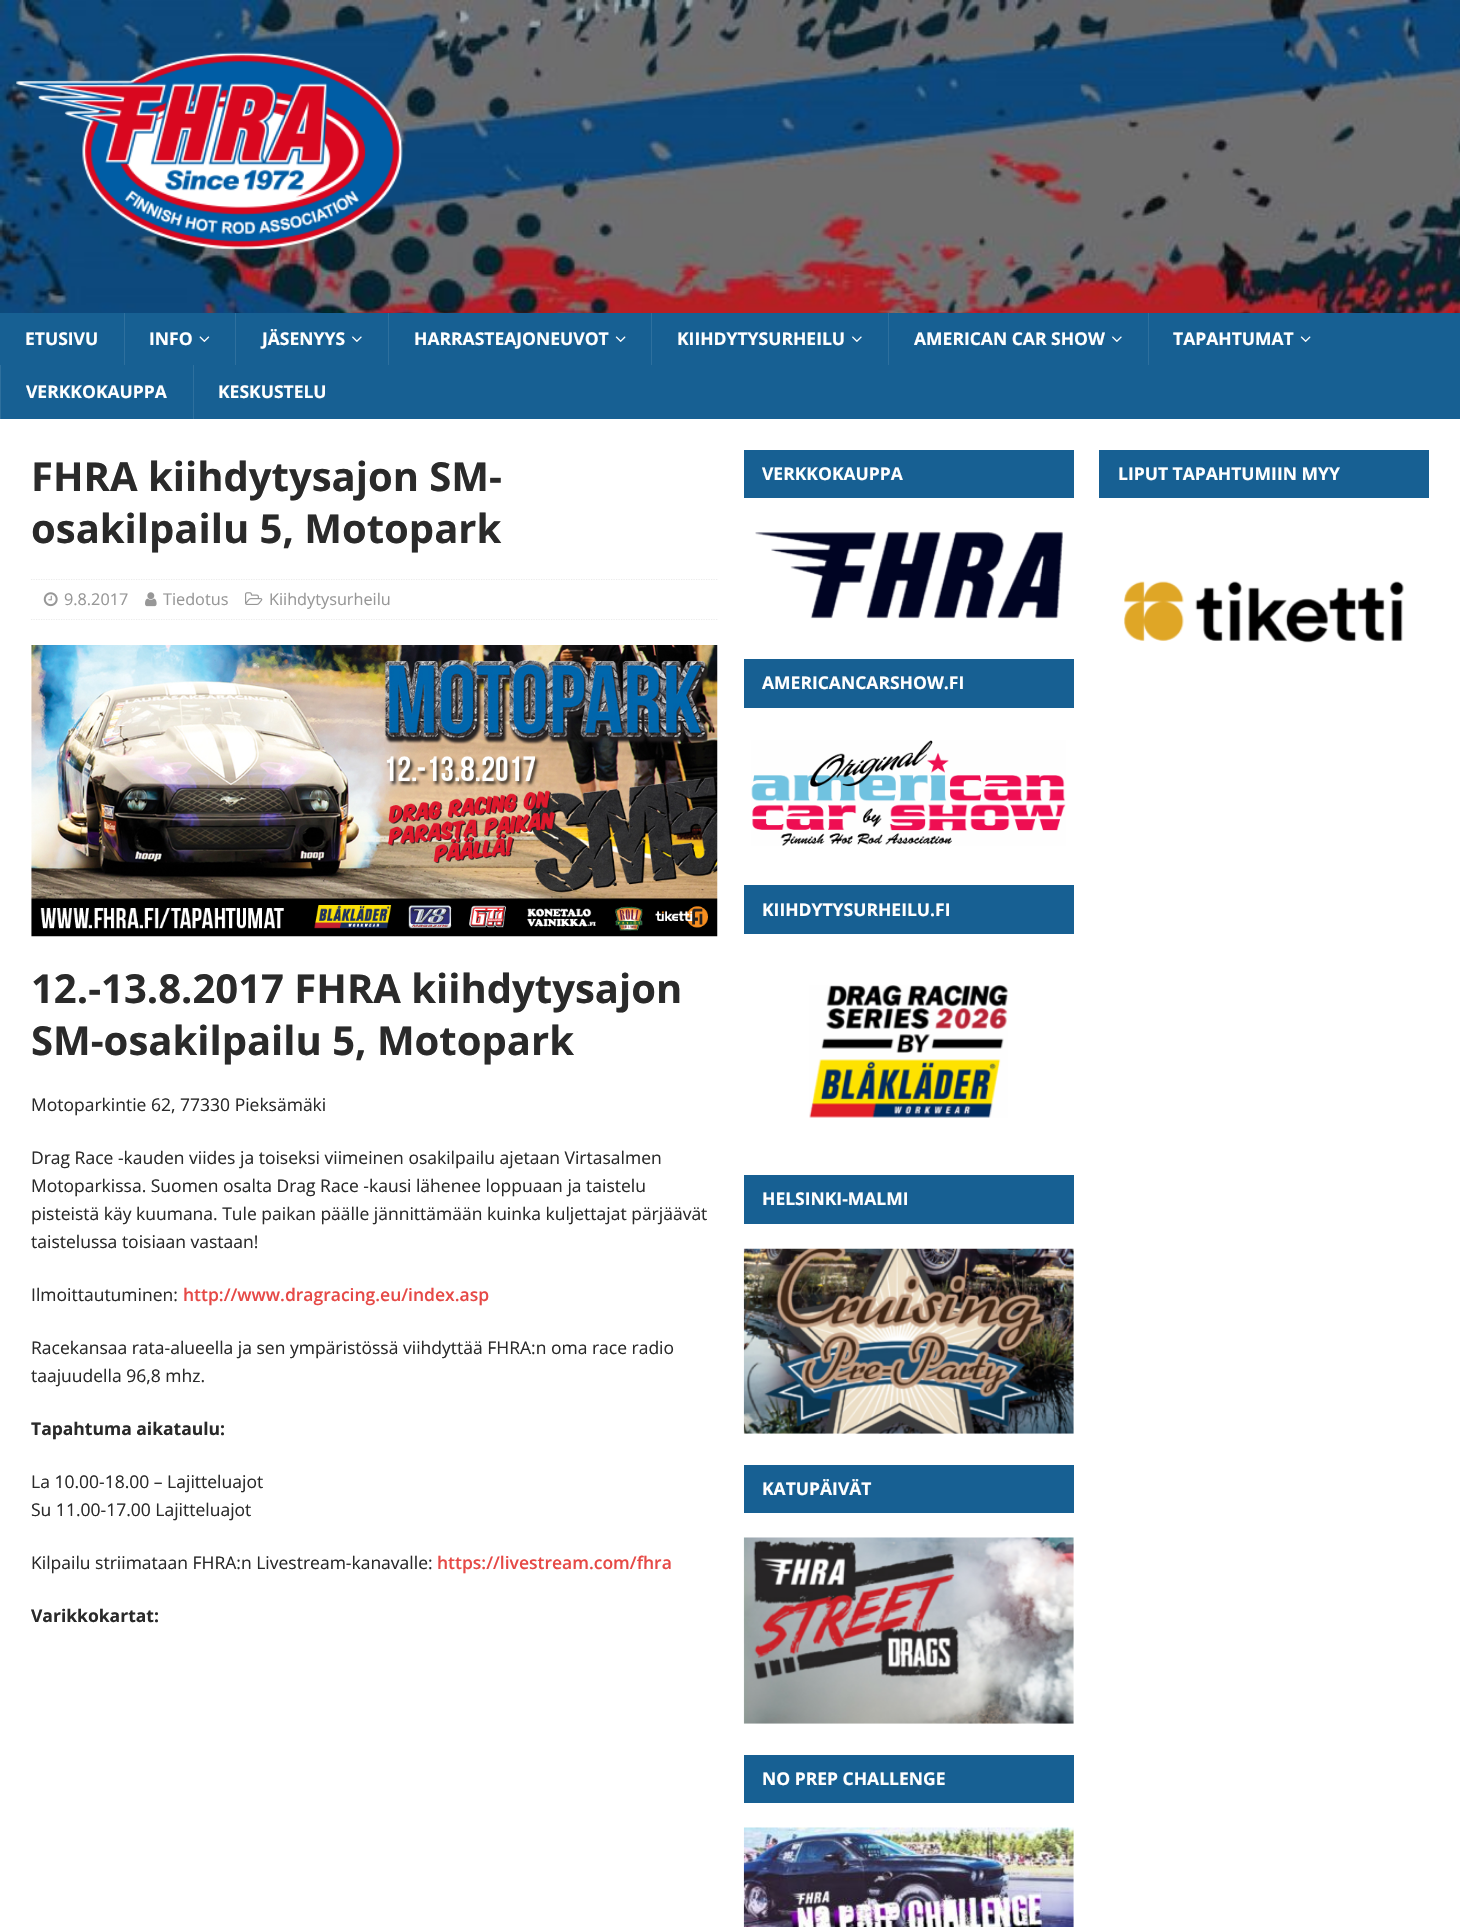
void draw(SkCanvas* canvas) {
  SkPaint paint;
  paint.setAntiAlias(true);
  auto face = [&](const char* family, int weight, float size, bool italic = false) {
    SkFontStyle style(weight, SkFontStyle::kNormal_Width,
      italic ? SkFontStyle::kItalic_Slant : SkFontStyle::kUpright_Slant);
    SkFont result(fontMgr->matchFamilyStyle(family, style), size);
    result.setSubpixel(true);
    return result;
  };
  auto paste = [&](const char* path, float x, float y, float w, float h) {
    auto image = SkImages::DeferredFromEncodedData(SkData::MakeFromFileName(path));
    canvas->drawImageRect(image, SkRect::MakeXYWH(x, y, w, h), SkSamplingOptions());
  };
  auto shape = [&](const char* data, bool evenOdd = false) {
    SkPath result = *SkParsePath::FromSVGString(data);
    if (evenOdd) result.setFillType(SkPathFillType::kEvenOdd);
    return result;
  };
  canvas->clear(0xffffffff);
  paste("img/1.png", 0, 0, 1460, 313);
  paste("img/2.png", 16, 52, 387, 199);
  paint.setColor(0xff176093);
  canvas->drawRect(SkRect::MakeXYWH(0, 313, 1460, 106), paint);
  paint.setColor(0xff2e709e);
  canvas->drawRect(SkRect::MakeXYWH(124, 313, 1, 52), paint);
  paste("img/3.png", 199, 336, 11, 6);
  canvas->drawRect(SkRect::MakeXYWH(235, 313, 1, 52), paint);
  paste("img/4.png", 352, 336, 10, 6);
  canvas->drawRect(SkRect::MakeXYWH(388, 313, 1, 52), paint);
  paste("img/5.png", 615, 336, 11, 6);
  canvas->drawRect(SkRect::MakeXYWH(651, 313, 1, 52), paint);
  paste("img/4.png", 852, 336, 10, 6);
  canvas->drawRect(SkRect::MakeXYWH(888, 313, 1, 52), paint);
  paste("img/4.png", 1112, 336, 10, 6);
  canvas->drawRect(SkRect::MakeXYWH(1148, 313, 1, 52), paint);
  paste("img/5.png", 1300, 336, 11, 6);
  canvas->drawRect(SkRect::MakeXYWH(0, 365, 1, 54), paint);
  canvas->drawRect(SkRect::MakeXYWH(193, 365, 1, 54), paint);
  paint.setStroke(true);
  paint.setStrokeWidth(1.2f);
  paint.setColor(0xffebebeb);
  paint.setPathEffect(SkDashPathEffect::Make({{1.25f, 1.25f}}, 0));
  canvas->drawPath(shape("M31 579.5H717.5"), paint);
  paint.setPathEffect(nullptr);
  paint.setPathEffect(SkDashPathEffect::Make({{1.25f, 1.25f}}, 0));
  canvas->drawPath(shape("M31 619.5H717.5"), paint);
  paint.setPathEffect(nullptr);
  paste("img/6.png", 43, 592, 15, 15);
  paste("img/7.png", 145, 592, 12, 15);
  paste("img/8.png", 245, 592, 18, 13);
  paste("img/9.png", 31, 645, 687, 292);
  paint.setStroke(false);
  paint.setColor(0xff176093);
  canvas->drawRect(SkRect::MakeXYWH(744, 450, 330, 48), paint);
  paste("img/10.png", 755, 531, 308, 88);
  canvas->drawRect(SkRect::MakeXYWH(744, 659, 330, 49), paint);
  paste("img/11.png", 751, 740, 315, 106);
  canvas->drawRect(SkRect::MakeXYWH(744, 885, 330, 49), paint);
  paste("img/12.png", 809, 985, 199, 133);
  canvas->drawRect(SkRect::MakeXYWH(744, 1175, 330, 49), paint);
  paste("img/13.png", 743, 1248, 331, 186);
  canvas->drawRect(SkRect::MakeXYWH(744, 1465, 330, 48), paint);
  paste("img/14.png", 743, 1537, 331, 187);
  canvas->drawRect(SkRect::MakeXYWH(744, 1755, 330, 48), paint);
  paste("img/15.png", 743, 1827, 331, 100);
  canvas->drawRect(SkRect::MakeXYWH(1099, 450, 330, 48), paint);
  paste("img/16.png", 1124, 581, 280, 62);
  auto f0 = face("Open Sans", 700, 17.5f);
  paint.setColor(0xffffffff);
  {
    const struct { const char* s; float x, y; } items[] = {
      {"ETUSIVU", 25, 345},
      {"INFO", 149, 345},
      {"JÄSENYYS", 262, 345},
      {"HARRASTEAJONEUVOT", 414, 345},
      {"KIIHDYTYSURHEILU", 677, 345},
      {"AMERICAN CAR SHOW", 914, 345},
      {"TAPAHTUMAT", 1173, 345},
      {"VERKKOKAUPPA", 26, 398},
      {"KESKUSTELU", 218, 398},
    };
    for (auto [s, x, y] : items) {
      canvas->drawString(s, x, y, f0, paint);
    }
  }
  auto f1 = face("Open Sans", 700, 40);
  paint.setColor(0xff2a2a2a);
  canvas->drawString("FHRA kiihdytysajon SM-", 31, 491, f1, paint);
  canvas->drawString("osakilpailu 5, Motopark", 31, 543, f1, paint);
  auto f2 = face("Open Sans", 400, 16.25f);
  paint.setColor(0xff979797);
  {
    const struct { const char* s; float x, y; } items[] = {
      {"9.8.2017", 64, 605},
      {"Tiedotus", 163, 605},
      {"Kiihdytysurheilu", 269, 605},
    };
    for (auto [s, x, y] : items) {
      canvas->drawString(s, x, y, f2, paint);
    }
  }
  paint.setColor(0xff2a2a2a);
  canvas->drawString("12.-13.8.2017 FHRA kiihdytysajon", 31, 1003, f1, paint);
  canvas->drawString("SM-osakilpailu 5, Motopark", 31, 1055, f1, paint);
  auto f3 = face("Open Sans", 400, 17.5f);
  {
    const struct { const char* s; float x, y; } items[] = {
      {"Motoparkintie 62, 77330 Pieksämäki", 31, 1111},
      {"Drag Race -kauden viides ja toiseksi viimeinen osakilpailu ajetaan Virtasalmen", 31, 1164},
      {"Motoparkissa. Suomen osalta Drag Race -kausi lähenee loppuaan ja taistelu", 31, 1192},
      {"pisteistä käy kuumana. Tule paikan päälle jännittämään kuinka kuljettajat pärjäävät", 31, 1220},
      {"taistelussa toisiaan vastaan!", 31, 1248},
      {"Ilmoittautuminen:", 31, 1301},
    };
    for (auto [s, x, y] : items) {
      canvas->drawString(s, x, y, f3, paint);
    }
  }
  auto f4 = face("Open Sans", 600, 17.5f);
  paint.setColor(0xffe64946);
  canvas->drawString("http://www.dragracing.eu/index.asp", 183, 1301, f4, paint);
  paint.setColor(0xff2a2a2a);
  canvas->drawString("Racekansaa rata-alueella ja sen ympäristössä viihdyttää FHRA:n oma race radio", 31, 1354, f3, paint);
  canvas->drawString("taajuudella 96,8 mhz.", 31, 1382, f3, paint);
  canvas->drawString("Tapahtuma aikataulu:", 31, 1435, f0, paint);
  {
    const struct { const char* s; float x, y; } items[] = {
      {"La 10.00-18.00 – Lajitteluajot", 31, 1488},
      {"Su 11.00-17.00 Lajitteluajot", 31, 1516},
      {"Kilpailu striimataan FHRA:n Livestream-kanavalle:", 31, 1569},
    };
    for (auto [s, x, y] : items) {
      canvas->drawString(s, x, y, f3, paint);
    }
  }
  paint.setColor(0xffe64946);
  canvas->drawString("https://livestream.com/fhra", 437, 1569, f4, paint);
  paint.setColor(0xff2a2a2a);
  canvas->drawString("Varikkokartat:", 31, 1622, f0, paint);
  paint.setColor(0xffffffff);
  {
    const struct { const char* s; float x, y; } items[] = {
      {"VERKKOKAUPPA", 762, 480},
      {"AMERICANCARSHOW.FI", 762, 689},
      {"KIIHDYTYSURHEILU.FI", 762, 916},
      {"HELSINKI-MALMI", 762, 1205},
      {"KATUPÄIVÄT", 762, 1495},
      {"NO PREP CHALLENGE", 762, 1785},
      {"LIPUT TAPAHTUMIIN MYY", 1118, 480},
    };
    for (auto [s, x, y] : items) {
      canvas->drawString(s, x, y, f0, paint);
    }
  }
}
